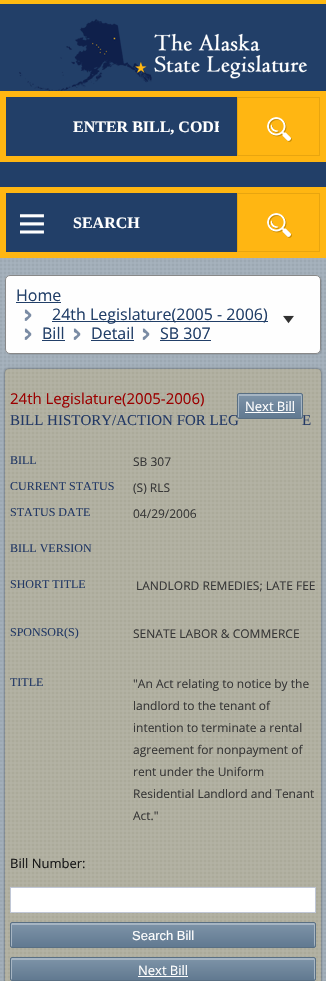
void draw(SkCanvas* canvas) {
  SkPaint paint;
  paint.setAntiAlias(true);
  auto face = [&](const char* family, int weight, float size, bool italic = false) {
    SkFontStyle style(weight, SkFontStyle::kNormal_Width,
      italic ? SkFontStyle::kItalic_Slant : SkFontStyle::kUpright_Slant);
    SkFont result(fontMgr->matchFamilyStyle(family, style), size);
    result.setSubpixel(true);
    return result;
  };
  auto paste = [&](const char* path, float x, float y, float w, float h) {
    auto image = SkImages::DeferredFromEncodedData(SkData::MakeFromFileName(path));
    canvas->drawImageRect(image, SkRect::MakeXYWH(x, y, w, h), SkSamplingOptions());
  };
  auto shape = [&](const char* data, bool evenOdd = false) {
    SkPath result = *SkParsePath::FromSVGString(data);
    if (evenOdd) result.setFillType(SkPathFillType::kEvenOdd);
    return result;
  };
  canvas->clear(0xffffffff);
  paste("img/1.png", 0, 258, 326, 723);
  paint.setColor(0xff223f68);
  canvas->drawRect(SkRect::MakeXYWH(0, 4, 326, 183), paint);
  paint.setColor(0xffffba11);
  canvas->drawRect(SkRect::MakeXYWH(0, 0, 326, 4), paint);
  paste("img/2.png", 19, 19, 288, 72);
  paint.setColor(0xffffb612);
  canvas->drawRect(SkRect::MakeXYWH(0, 91, 326, 71), paint);
  paint.setColor(0xff223f68);
  canvas->drawRect(SkRect::MakeXYWH(6, 97, 231, 59), paint);
  paste("img/3.png", 267, 117, 25, 25);
  paint.setStroke(true);
  paint.setStrokeWidth(1);
  paint.setColor(0xffe8a50f);
  canvas->drawRect(SkRect::MakeXYWH(237.5f, 97.5f, 82, 58), paint);
  paint.setStroke(false);
  paint.setColor(0xffffb612);
  canvas->drawRect(SkRect::MakeXYWH(0, 187, 326, 71), paint);
  paint.setColor(0xff223f68);
  canvas->drawRect(SkRect::MakeXYWH(6, 193, 231, 59), paint);
  paste("img/4.png", 20, 214, 24, 20);
  paste("img/3.png", 267, 213, 25, 25);
  paint.setStroke(true);
  paint.setColor(0xffe8a50f);
  canvas->drawRect(SkRect::MakeXYWH(237.5f, 193.5f, 82, 58), paint);
  paint.setStroke(false);
  paint.setColor(0x1a000000);
  paint.setMaskFilter(SkMaskFilter::MakeBlur(kNormal_SkBlurStyle, 0.5f));
  canvas->drawRoundRect(SkRect::MakeXYWH(6, 276, 316, 79), 5, 5, paint);
  paint.setMaskFilter(nullptr);
  paint.setColor(0xfffefefe);
  canvas->drawRoundRect(SkRect::MakeXYWH(5.5f, 275.5f, 315, 78), 4.5f, 4.5f, paint);
  paint.setStroke(true);
  paint.setColor(0xff888888);
  canvas->drawRoundRect(SkRect::MakeXYWH(5.5f, 275.5f, 315, 78), 4.5f, 4.5f, paint);
  paint.setStroke(false);
  paint.setColor(0xff223f68);
  canvas->drawRect(SkRect::MakeXYWH(16, 302, 45, 1), paint);
  paste("img/5.png", 24, 309, 8, 12);
  canvas->drawRect(SkRect::MakeXYWH(52, 321, 216, 1), paint);
  paste("img/6.png", 283, 315, 11, 9);
  paste("img/5.png", 24, 328, 8, 12);
  canvas->drawRect(SkRect::MakeXYWH(42, 340, 23, 1), paint);
  paste("img/5.png", 73, 328, 8, 12);
  canvas->drawRect(SkRect::MakeXYWH(91, 340, 43, 1), paint);
  paste("img/5.png", 142, 328, 8, 12);
  canvas->drawRect(SkRect::MakeXYWH(160, 340, 51, 1), paint);
  canvas->save();
  canvas->clipPath(shape("M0 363H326V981H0ZM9 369H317C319 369 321 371 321 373V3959C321 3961 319 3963 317 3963H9C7 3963 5 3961 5 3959V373C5 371 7 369 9 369Z", true), true);
  paint.setColor(0x80000000);
  paint.setMaskFilter(SkMaskFilter::MakeBlur(kNormal_SkBlurStyle, 1.5f));
  canvas->drawRoundRect(SkRect::MakeXYWH(5, 369, 316, 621), 4, 4, paint);
  paint.setMaskFilter(nullptr);
  canvas->restore();
  paint.setColor(0x26ffb612);
  canvas->drawRoundRect(SkRect::MakeXYWH(5, 369, 316, 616), 4, 4, paint);
  paint.setColor(0xffffffff);
  canvas->drawRect(SkRect::MakeXYWH(10.5f, 887.5f, 305, 25), paint);
  paint.setStroke(true);
  paint.setColor(0xffc0c7d6);
  canvas->drawRect(SkRect::MakeXYWH(10.5f, 887.5f, 305, 25), paint);
  canvas->save();
  canvas->clipPath(shape("M12 922H314C315 922 316 923 316 924V946C316 947 315 948 314 948H12C11 948 10 947 10 946V924C10 923 11 922 12 922Z"), true);
  paint.setStroke(false);
  {
    const SkColor colors[] = {0xff7e94a8, 0xff617990};
    const float stops[] = {0, 1};
    const SkPoint ends[] = {{163, 923}, {163, 947}};
    paint.setShader(SkGradientShader::MakeLinear(ends, colors, stops, 2, SkTileMode::kClamp));
    paint.setAlpha(255);
  }
  canvas->drawRect(SkRect::MakeXYWH(10, 923, 306, 24), paint);
  canvas->restore();
  paint.setShader(nullptr);
  paint.setColor(0xffa6b5c3);
  canvas->drawPath(shape("M12 925H314V947C316 947 315 931 315 928C315 926 316 923 314 923H12L11 924C11 932 10 947 12 947Z"), paint);
  paint.setStroke(true);
  paint.setColor(0xff596f83);
  canvas->drawRoundRect(SkRect::MakeXYWH(10.5f, 922.5f, 305, 25), 1.5f, 1.5f, paint);
  canvas->save();
  canvas->clipPath(shape("M12 957H314C315 957 316 958 316 959V979C316 980 315 981 314 981H12C11 981 10 980 10 979V959C10 958 11 957 12 957Z"), true);
  paint.setStroke(false);
  {
    const SkColor colors[] = {0xff7e94a8, 0xff617990};
    const float stops[] = {0, 1};
    const SkPoint ends[] = {{163, 958}, {163, 980}};
    paint.setShader(SkGradientShader::MakeLinear(ends, colors, stops, 2, SkTileMode::kClamp));
    paint.setAlpha(255);
  }
  canvas->drawRect(SkRect::MakeXYWH(10, 958, 306, 22), paint);
  canvas->restore();
  paint.setShader(nullptr);
  paint.setColor(0xffa6b5c3);
  canvas->drawPath(shape("M12 960H314V980C316 980 315 971 315 969V959L314 958H12C10 958 11 965 11 966C11 968 10 980 12 980Z"), paint);
  paint.setStroke(true);
  paint.setColor(0xff596f83);
  canvas->drawRoundRect(SkRect::MakeXYWH(10.5f, 957.5f, 305, 23), 1.5f, 1.5f, paint);
  paint.setStroke(false);
  paint.setColor(0xffffffff);
  canvas->drawRect(SkRect::MakeXYWH(138, 976, 50, 1), paint);
  canvas->save();
  canvas->clipRect(SkRect::MakeXYWH(73, 118, 146, 18));
  auto f0 = face("Liberation Serif", 700, 16);
  canvas->drawString("ENTER BILL, CODE", 73, 132, f0, paint);
  canvas->restore();
  canvas->drawString("SEARCH", 73, 228, f0, paint);
  auto f1 = face("Open Sans", 400, 16);
  paint.setColor(0xff223f68);
  {
    const struct { const char* s; float x, y; } items[] = {
      {"Home", 16, 301},
      {"24th Legislature(2005 - 2006)", 52, 320},
      {"Bill", 42, 339},
      {"Detail", 91, 339},
      {"SB 307", 160, 339},
    };
    for (auto [s, x, y] : items) {
      canvas->drawString(s, x, y, f1, paint);
    }
  }
  auto f2 = face("Open Sans", 400, 15);
  paint.setColor(0xff9b0000);
  canvas->drawString("24th Legislature(2005-2006)", 10, 404, f2, paint);
  auto f3 = face("Liberation Serif", 400, 15);
  paint.setColor(0xff233965);
  canvas->drawString("BILL HISTORY/ACTION FOR LEG", 10, 425, f3, paint);
  canvas->drawString("E", 302, 425, f3, paint);
  canvas->save();
  canvas->clipPath(shape("M239 393H301C302 393 303 394 303 395V417C303 418 302 419 301 419H239C238 419 237 418 237 417V395C237 394 238 393 239 393Z"), true);
  {
    const SkColor colors[] = {0xff7e94a8, 0xff617990};
    const float stops[] = {0, 1};
    const SkPoint ends[] = {{270, 394}, {270, 418}};
    paint.setShader(SkGradientShader::MakeLinear(ends, colors, stops, 2, SkTileMode::kClamp));
    paint.setAlpha(255);
  }
  canvas->drawRect(SkRect::MakeXYWH(237, 394, 66, 24), paint);
  canvas->restore();
  paint.setShader(nullptr);
  paint.setColor(0xffa6b5c3);
  canvas->drawPath(shape("M239 396H301V418C303 418 302 402 302 399C302 391 301 394 291 394H239C237 394 238 410 238 417L239 418Z"), paint);
  paint.setStroke(true);
  paint.setColor(0xff596f83);
  canvas->drawRoundRect(SkRect::MakeXYWH(237.5f, 393.5f, 65, 25), 1.5f, 1.5f, paint);
  auto f4 = face("Open Sans", 400, 13);
  paint.setStroke(false);
  paint.setColor(0xffffffff);
  canvas->drawString("Next Bill", 245, 411, f4, paint);
  canvas->drawRect(SkRect::MakeXYWH(245, 412, 50, 1), paint);
  auto f5 = face("Liberation Serif", 400, 12);
  paint.setColor(0xff233965);
  canvas->drawString("BILL", 10, 464, f5, paint);
  auto f6 = face("Open Sans", 400, 12);
  paint.setColor(0xff373737);
  canvas->drawString("SB 307", 133, 466, f6, paint);
  paint.setColor(0xff233965);
  canvas->drawString("CURRENT STATUS", 10, 490, f5, paint);
  paint.setColor(0xff373737);
  canvas->drawString("(S) RLS", 133, 492, f6, paint);
  paint.setColor(0xff233965);
  canvas->drawString("STATUS DATE", 10, 516, f5, paint);
  paint.setColor(0xff373737);
  canvas->drawString("04/29/2006", 133, 518, f6, paint);
  paint.setColor(0xff233965);
  canvas->drawString("BILL VERSION", 10, 552, f5, paint);
  canvas->drawString("SHORT TITLE", 10, 588, f5, paint);
  paint.setColor(0xff373737);
  canvas->drawString("LANDLORD REMEDIES; LATE FEE", 136, 590, f6, paint);
  paint.setColor(0xff233965);
  canvas->drawString("SPONSOR(S)", 10, 636, f5, paint);
  paint.setColor(0xff373737);
  canvas->drawString("SENATE LABOR & COMMERCE", 133, 638, f6, paint);
  paint.setColor(0xff233965);
  canvas->drawString("TITLE", 10, 686, f5, paint);
  paint.setColor(0xff373737);
  {
    const struct { const char* s; float x, y; } items[] = {
      {"\"An Act relating to notice by the", 133, 688},
      {"landlord to the tenant of", 133, 710},
      {"intention to terminate a rental", 133, 732},
      {"agreement for nonpayment of", 133, 754},
      {"rent under the Uniform", 133, 776},
      {"Residential Landlord and Tenant", 133, 798},
      {"Act.\"", 133, 820},
    };
    for (auto [s, x, y] : items) {
      canvas->drawString(s, x, y, f6, paint);
    }
  }
  paint.setColor(0xff161616);
  canvas->drawString("Bill Number:", 10, 868, f4, paint);
  auto f7 = face("Liberation Sans", 400, 13);
  paint.setColor(0xffffffff);
  canvas->drawString("Search Bill", 132, 940, f7, paint);
  canvas->drawString("Next Bill", 138, 975, f4, paint);
}
